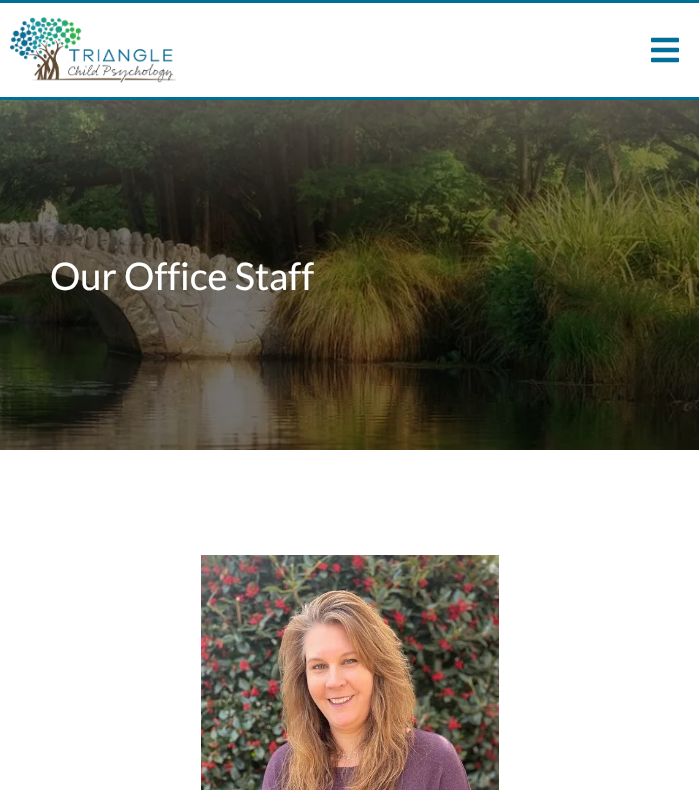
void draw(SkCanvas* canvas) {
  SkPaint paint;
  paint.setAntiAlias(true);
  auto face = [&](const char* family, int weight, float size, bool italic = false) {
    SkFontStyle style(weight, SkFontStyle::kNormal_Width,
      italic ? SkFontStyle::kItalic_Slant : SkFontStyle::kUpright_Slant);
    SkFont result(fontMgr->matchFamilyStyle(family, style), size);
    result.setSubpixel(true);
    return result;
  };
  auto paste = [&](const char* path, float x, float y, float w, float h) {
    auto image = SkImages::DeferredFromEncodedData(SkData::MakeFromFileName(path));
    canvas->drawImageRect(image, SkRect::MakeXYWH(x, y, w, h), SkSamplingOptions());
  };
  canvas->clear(0xffffffff);
  paint.setColor(0xff006f97);
  canvas->drawRect(SkRect::MakeXYWH(0, 0, 699, 3), paint);
  canvas->drawRect(SkRect::MakeXYWH(0, 97, 699, 3), paint);
  paste("img/1.png", 10, 17, 166, 66);
  paste("img/2.png", 651, 37, 28, 26);
  paste("img/3.png", 0, 100, 699, 350);
  paste("img/4.png", 201, 555, 298, 235);
  auto f0 = face("Lato", 400, 38);
  paint.setColor(0xffffffff);
  canvas->drawString("Our Office Staff", 50, 290, f0, paint);
}
